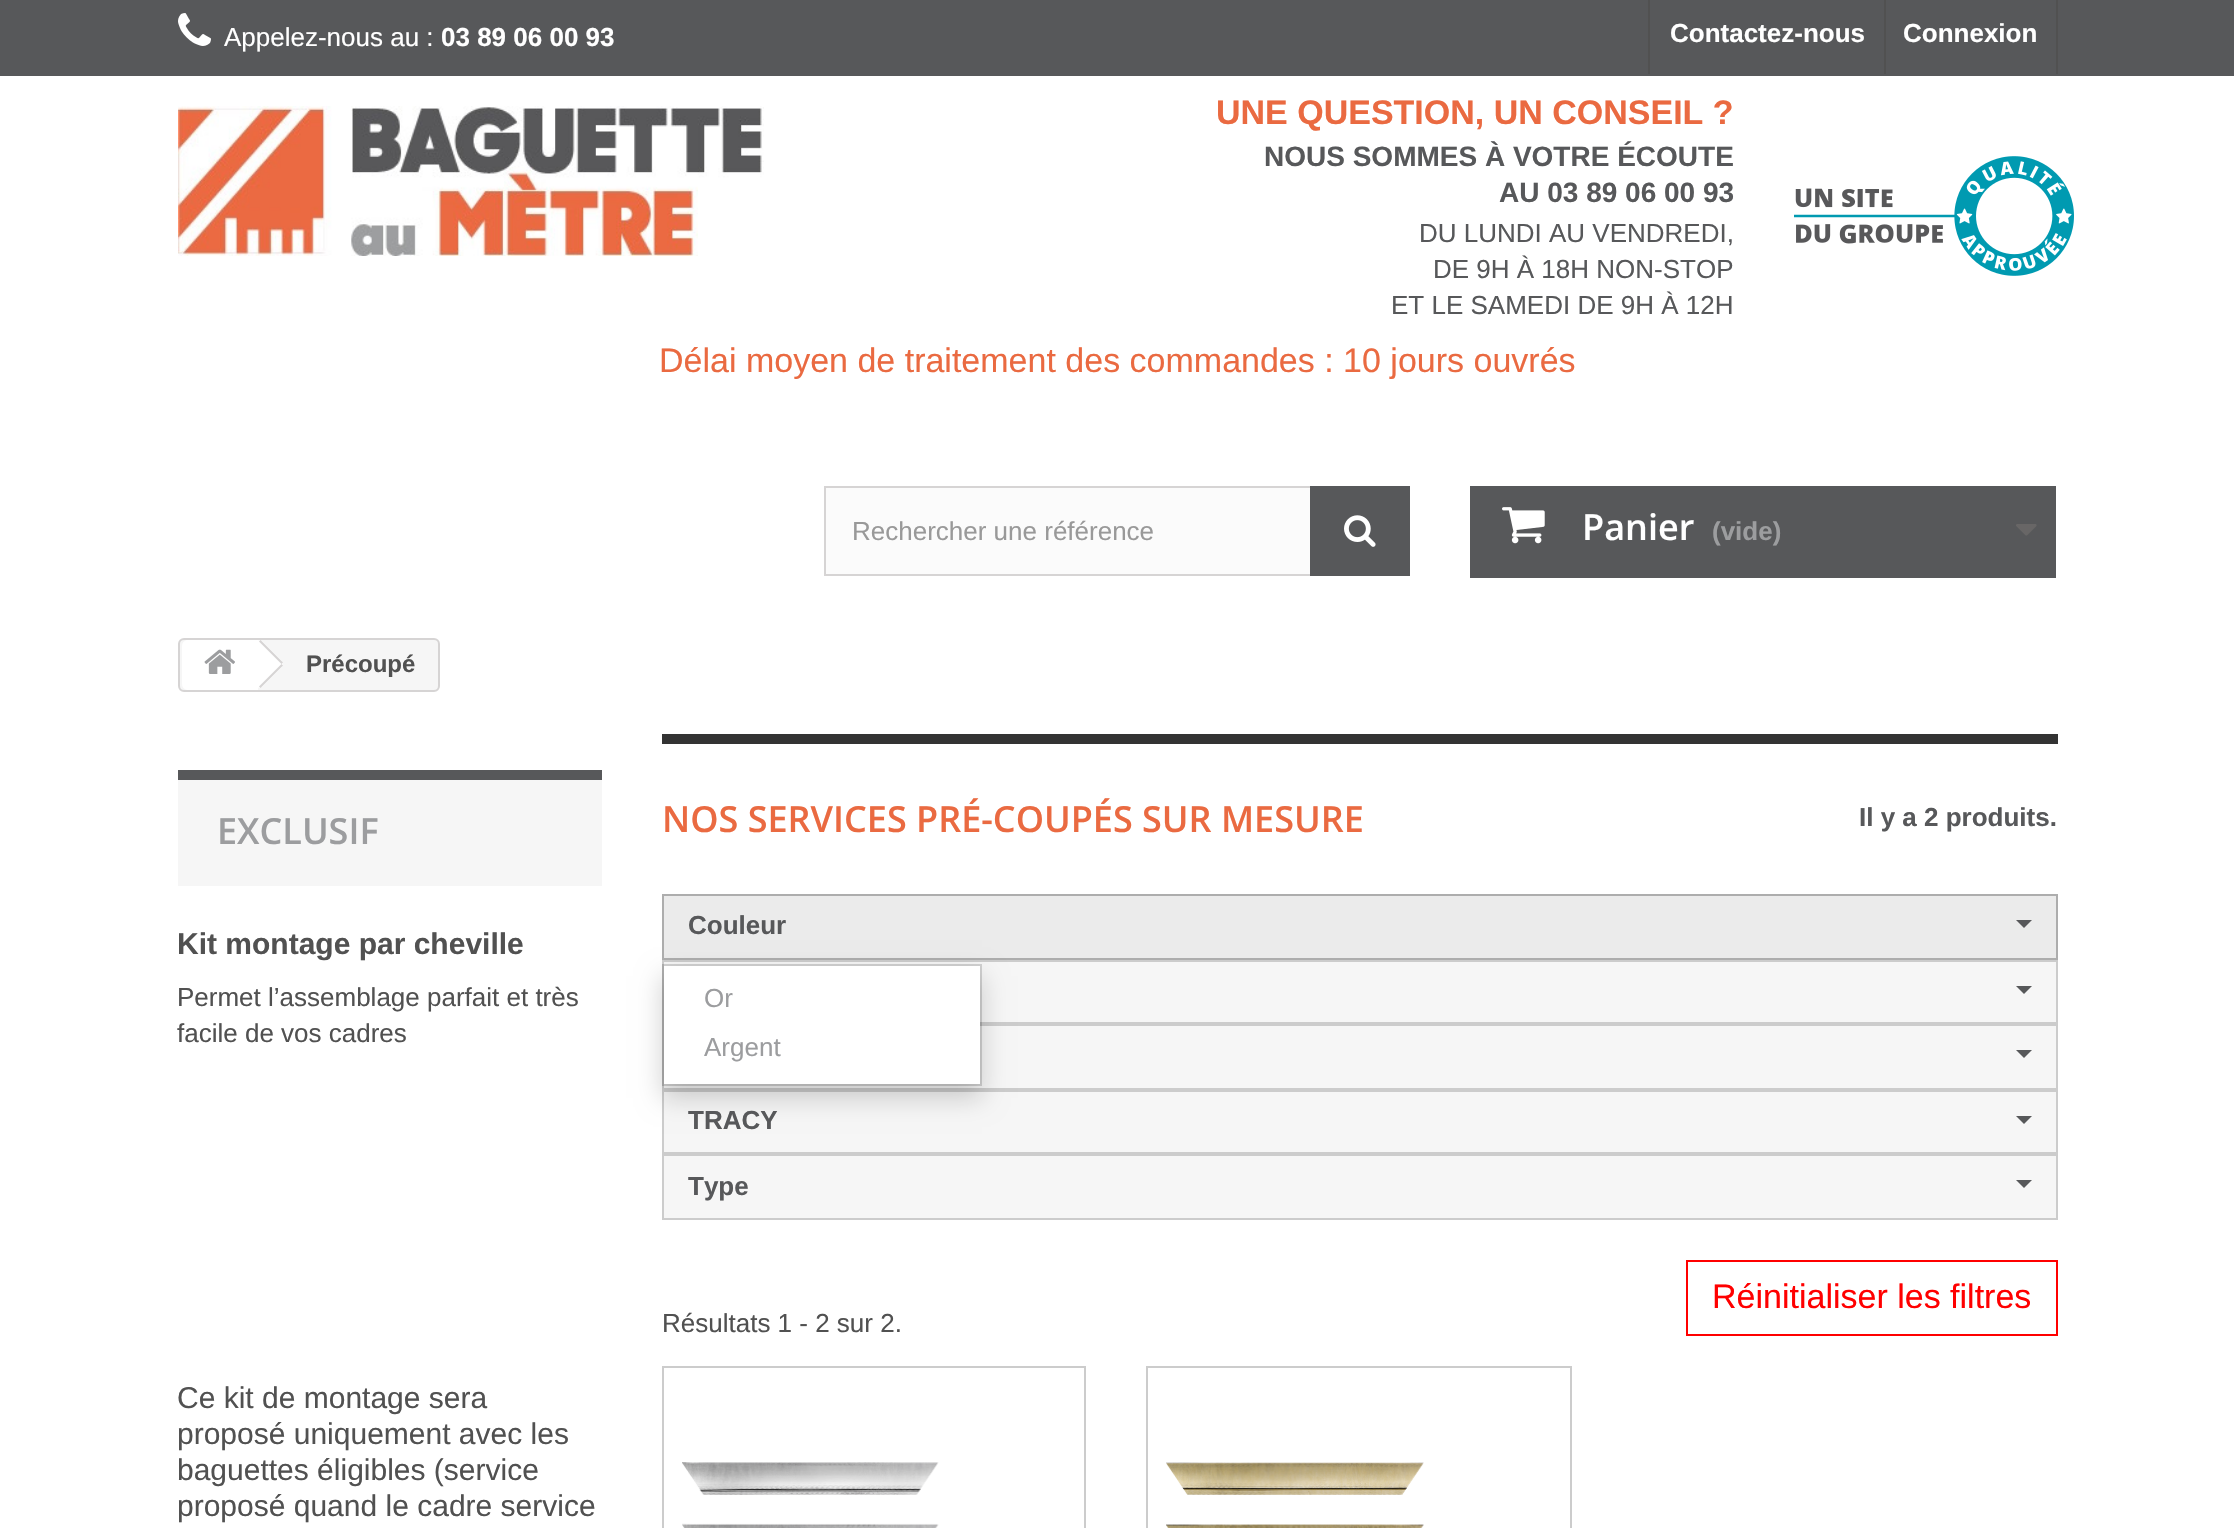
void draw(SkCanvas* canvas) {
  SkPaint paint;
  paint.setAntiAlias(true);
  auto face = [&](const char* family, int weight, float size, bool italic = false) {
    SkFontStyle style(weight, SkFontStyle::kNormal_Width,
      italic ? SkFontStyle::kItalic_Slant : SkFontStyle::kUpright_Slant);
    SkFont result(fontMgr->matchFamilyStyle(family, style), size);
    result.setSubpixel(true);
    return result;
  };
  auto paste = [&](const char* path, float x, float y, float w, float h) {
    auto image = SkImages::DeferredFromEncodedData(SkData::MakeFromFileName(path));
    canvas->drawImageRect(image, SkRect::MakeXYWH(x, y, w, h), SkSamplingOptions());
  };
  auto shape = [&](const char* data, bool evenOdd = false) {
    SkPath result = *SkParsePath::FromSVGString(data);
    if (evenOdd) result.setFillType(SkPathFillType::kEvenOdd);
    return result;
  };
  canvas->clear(0xffffffff);
  paint.setColor(0xff57585a);
  canvas->drawRect(SkRect::MakeXYWH(0, 0, 2234, 76), paint);
  paste("img/1.png", 178, 13, 33, 33);
  {
    const struct { float x, y, w, h; SkColor color; } items[] = {
      {1648, 0, 2, 74, 0xff515151},
      {2056, 0, 2, 74, 0xff515151},
      {1884, 0, 2, 74, 0xff515151},
    };
    for (auto [x, y, w, h, color] : items) {
      paint.setColor(color);
      canvas->drawRect(SkRect::MakeXYWH(x, y, w, h), paint);
    }
  }
  paste("img/2.png", 178, 106, 586, 150);
  paste("img/3.png", 1794, 156, 280, 120);
  paint.setColor(0xfffbfbfb);
  canvas->drawRect(SkRect::MakeXYWH(826, 488, 484, 86), paint);
  paint.setStroke(true);
  paint.setStrokeWidth(2);
  paint.setColor(0xffd6d4d4);
  canvas->drawRect(SkRect::MakeXYWH(825, 487, 584, 88), paint);
  paint.setStroke(false);
  paint.setColor(0xff57585a);
  canvas->drawRect(SkRect::MakeXYWH(1310, 486, 100, 90), paint);
  paste("img/4.png", 1344, 515, 32, 32);
  canvas->drawRect(SkRect::MakeXYWH(1470, 486, 586, 92), paint);
  paste("img/5.png", 1502, 507, 43, 37);
  paste("img/6.png", 2016, 524, 21, 12);
  paint.setColor(0xfff6f6f6);
  canvas->drawRoundRect(SkRect::MakeXYWH(179, 639, 260, 52), 5, 5, paint);
  paint.setStroke(true);
  paint.setColor(0xffd6d4d4);
  canvas->drawRoundRect(SkRect::MakeXYWH(179, 639, 260, 52), 5, 5, paint);
  paint.setStroke(false);
  paint.setColor(0xffffffff);
  canvas->drawPath(shape("M188 640H258V690H188C184.5 690 182 687.5 182 684V646C182 642.5 184.5 640 188 640Z"), paint);
  paste("img/7.png", 204, 649, 31, 25);
  canvas->drawPath(shape("M262 641L282 661C283 663 283 665 282 667L262 687C260 688 258 688 256 687L236 667C235 665 235 663 236 661L256 641C258 640 260 640 262 641Z"), paint);
  paint.setColor(0xffd6d4d4);
  canvas->drawPath(shape("M260.5 640L283 662.5L281.5 664L259 641.5ZM281.5 664L283 665.5L260.5 688L259 686.5Z"), paint);
  {
    const struct { float x, y, w, h; SkColor color; } items[] = {
      {178, 780, 424, 106, 0xfff6f6f6},
      {178, 770, 424, 10, 0xff57585a},
      {662, 734, 1396, 10, 0xff333333},
    };
    for (auto [x, y, w, h, color] : items) {
      paint.setColor(color);
      canvas->drawRect(SkRect::MakeXYWH(x, y, w, h), paint);
    }
  }
  paint.setColor(0xffebebeb);
  canvas->drawRect(SkRect::MakeXYWH(663, 895, 1394, 64), paint);
  paint.setStroke(true);
  paint.setColor(0xffadadad);
  canvas->drawRect(SkRect::MakeXYWH(663, 895, 1394, 64), paint);
  paint.setStroke(false);
  paint.setColor(0xff57585a);
  canvas->drawPath(shape("M2016 920H2032L2024 928Z"), paint);
  paint.setColor(0xfff6f6f6);
  canvas->drawRect(SkRect::MakeXYWH(663, 961, 1394, 62), paint);
  paint.setStroke(true);
  paint.setColor(0xffcccccc);
  canvas->drawRect(SkRect::MakeXYWH(663, 961, 1394, 62), paint);
  paint.setStroke(false);
  paint.setColor(0xfff6f6f6);
  canvas->drawRect(SkRect::MakeXYWH(663, 1025, 1394, 64), paint);
  paint.setStroke(true);
  paint.setColor(0xffcccccc);
  canvas->drawRect(SkRect::MakeXYWH(663, 1025, 1394, 64), paint);
  paint.setStroke(false);
  paint.setColor(0xfff6f6f6);
  canvas->drawRect(SkRect::MakeXYWH(663, 1091, 1394, 62), paint);
  paint.setStroke(true);
  paint.setColor(0xffcccccc);
  canvas->drawRect(SkRect::MakeXYWH(663, 1091, 1394, 62), paint);
  paint.setStroke(false);
  paint.setColor(0x2e000000);
  paint.setMaskFilter(SkMaskFilter::MakeBlur(kNormal_SkBlurStyle, 12));
  canvas->drawRect(SkRect::MakeXYWH(662, 976, 320, 122), paint);
  paint.setMaskFilter(nullptr);
  paint.setColor(0xffffffff);
  canvas->drawRect(SkRect::MakeXYWH(664, 966, 316, 118), paint);
  paint.setStroke(true);
  paint.setColor(0x26000000);
  canvas->drawRect(SkRect::MakeXYWH(663, 965, 318, 120), paint);
  paint.setStroke(false);
  paint.setColor(0xff57585a);
  canvas->drawPath(shape("M2016 986H2032L2024 994Z"), paint);
  canvas->drawPath(shape("M2016 1050H2032L2024 1058Z"), paint);
  canvas->drawPath(shape("M2016 1116H2032L2024 1124Z"), paint);
  paint.setColor(0xfff6f6f6);
  canvas->drawRect(SkRect::MakeXYWH(663, 1155, 1394, 64), paint);
  paint.setStroke(true);
  paint.setColor(0xffcccccc);
  canvas->drawRect(SkRect::MakeXYWH(663, 1155, 1394, 64), paint);
  paint.setStroke(false);
  paint.setColor(0xff57585a);
  canvas->drawPath(shape("M2016 1180H2032L2024 1188Z"), paint);
  paint.setStroke(true);
  paint.setColor(0xffff0000);
  canvas->drawRect(SkRect::MakeXYWH(1687, 1261, 370, 74), paint);
  paint.setColor(0xffcccccc);
  canvas->drawRect(SkRect::MakeXYWH(663, 1367, 422, 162), paint);
  paste("img/8.png", 682, 1462, 257, 66);
  canvas->drawRect(SkRect::MakeXYWH(1147, 1367, 424, 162), paint);
  paste("img/9.png", 1166, 1462, 258, 66);
  auto f0 = face("Liberation Sans", 400, 26);
  paint.setStroke(false);
  paint.setColor(0xffffffff);
  canvas->drawString("Appelez-nous au :", 224, 46, f0, paint);
  auto f1 = face("Liberation Sans", 700, 26);
  {
    const struct { const char* s; float x, y; } items[] = {
      {"03 89 06 00 93", 441, 46},
      {"Contactez-nous", 1670, 42},
      {"Connexion", 1903, 42},
    };
    for (auto [s, x, y] : items) {
      canvas->drawString(s, x, y, f1, paint);
    }
  }
  auto f2 = face("Liberation Sans", 700, 34);
  paint.setColor(0xffea6a41);
  canvas->drawString("UNE QUESTION, UN CONSEIL ?", 1216, 124, f2, paint);
  auto f3 = face("Liberation Sans", 700, 28);
  paint.setColor(0xff57585a);
  canvas->drawString("NOUS SOMMES À VOTRE ÉCOUTE", 1264, 166, f3, paint);
  canvas->drawString("AU 03 89 06 00 93", 1499, 202, f3, paint);
  {
    const struct { const char* s; float x, y; } items[] = {
      {"DU LUNDI AU VENDREDI,", 1419, 242},
      {"DE 9H À 18H NON-STOP", 1433, 278},
      {"ET LE SAMEDI DE 9H À 12H", 1391, 314},
    };
    for (auto [s, x, y] : items) {
      canvas->drawString(s, x, y, f0, paint);
    }
  }
  auto f4 = face("Liberation Sans", 400, 34);
  paint.setColor(0xffea6a41);
  canvas->drawString("Délai moyen de traitement des commandes : 10 jours ouvrés", 659, 372, f4, paint);
  paint.setColor(0xff999999);
  canvas->drawString("Rechercher une référence", 852, 540, f0, paint);
  auto f5 = face("Open Sans", 600, 36);
  paint.setColor(0xffffffff);
  canvas->drawString("Panier", 1582, 540, f5, paint);
  paint.setColor(0xff9c9d9f);
  canvas->drawString("(vide)", 1712, 540, f1, paint);
  auto f6 = face("Liberation Sans", 700, 24);
  paint.setColor(0xff515151);
  canvas->drawString("Précoupé", 306, 672, f6, paint);
  paint.setColor(0xff9c9d9f);
  canvas->drawString("EXCLUSIF", 217, 844, f5, paint);
  auto f7 = face("Liberation Sans", 700, 30);
  paint.setColor(0xff515151);
  canvas->drawString("Kit montage par cheville", 177, 954, f7, paint);
  canvas->drawString("Permet l’assemblage parfait et très", 177, 1006, f0, paint);
  canvas->drawString("facile de vos cadres", 177, 1042, f0, paint);
  auto f8 = face("Liberation Sans", 400, 30);
  {
    const struct { const char* s; float x, y; } items[] = {
      {"Ce kit de montage sera", 177, 1408},
      {"proposé uniquement avec les", 177, 1444},
      {"baguettes éligibles (service", 177, 1480},
      {"proposé quand le cadre service", 177, 1516},
    };
    for (auto [s, x, y] : items) {
      canvas->drawString(s, x, y, f8, paint);
    }
  }
  paint.setColor(0xffea6a41);
  canvas->drawString("NOS SERVICES PRÉ-COUPÉS SUR MESURE", 662, 832, f5, paint);
  paint.setColor(0xff57585a);
  canvas->drawString("Il y a 2 produits.", 1859, 826, f1, paint);
  canvas->drawString("Couleur", 688, 934, f1, paint);
  paint.setColor(0xff9c9d9f);
  canvas->drawString("Or", 704, 1007, f0, paint);
  canvas->drawString("Argent", 704, 1056, f0, paint);
  paint.setColor(0xff57585a);
  canvas->drawString("TRACY", 688, 1129, f1, paint);
  canvas->drawString("Type", 688, 1195, f1, paint);
  paint.setColor(0xffff0000);
  canvas->drawString("Réinitialiser les filtres", 1712, 1308, f4, paint);
  paint.setColor(0xff515151);
  canvas->drawString("Résultats 1 - 2 sur 2.", 662, 1332, f0, paint);
}
